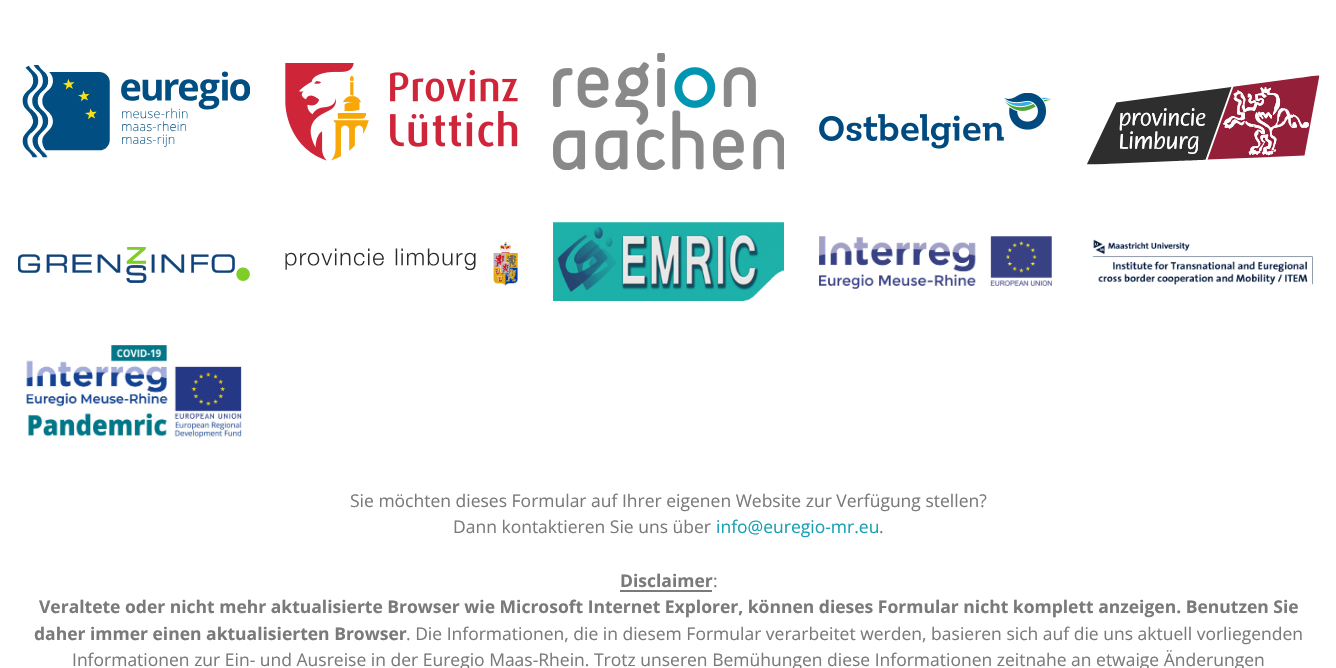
void draw(SkCanvas* canvas) {
  SkPaint paint;
  paint.setAntiAlias(true);
  auto face = [&](const char* family, int weight, float size, bool italic = false) {
    SkFontStyle style(weight, SkFontStyle::kNormal_Width,
      italic ? SkFontStyle::kItalic_Slant : SkFontStyle::kUpright_Slant);
    SkFont result(fontMgr->matchFamilyStyle(family, style), size);
    result.setSubpixel(true);
    return result;
  };
  auto paste = [&](const char* path, float x, float y, float w, float h) {
    auto image = SkImages::DeferredFromEncodedData(SkData::MakeFromFileName(path));
    canvas->drawImageRect(image, SkRect::MakeXYWH(x, y, w, h), SkSamplingOptions());
  };
  canvas->clear(0xffffffff);
  paste("img/1.png", 22, 65, 228, 93);
  paste("img/2.png", 285, 63, 233, 98);
  paste("img/3.png", 553, 53, 231, 117);
  paste("img/4.png", 819, 93, 232, 56);
  paste("img/5.png", 1087, 75, 233, 90);
  paste("img/6.png", 18, 247, 232, 36);
  paste("img/7.png", 285, 242, 233, 45);
  paste("img/8.png", 553, 222, 231, 79);
  paste("img/9.png", 819, 236, 233, 53);
  paste("img/10.png", 1092, 239, 221, 46);
  paste("img/11.png", 26, 345, 216, 94);
  paint.setColor(0xff7a7a7a);
  canvas->drawRect(SkRect::MakeXYWH(620, 590, 92, 2), paint);
  auto f0 = face("Open Sans", 400, 17.5f);
  canvas->drawString("Sie möchten dieses Formular auf Ihrer eigenen Website zur Verfügung stellen?", 350, 507, f0, paint);
  canvas->drawString("Dann kontaktieren Sie uns über", 453, 533, f0, paint);
  paint.setColor(0xff189fb4);
  canvas->drawString("info@euregio-mr.eu", 716, 533, f0, paint);
  paint.setColor(0xff7a7a7a);
  canvas->drawString(".", 879, 533, f0, paint);
  auto f1 = face("Open Sans", 700, 17.5f);
  canvas->drawString("Disclaimer", 620, 587, f1, paint);
  canvas->drawString(":", 713, 587, f0, paint);
  canvas->drawString("Veraltete oder nicht mehr aktualisierte Browser wie Microsoft Internet Explorer, können dieses Formular nicht komplett anzeigen. Benutzen Sie", 39, 613, f1, paint);
  canvas->drawString("daher immer einen aktualisierten Browser", 34, 640, f1, paint);
  canvas->drawString(". Die Informationen, die in diesem Formular verarbeitet werden, basieren sich auf die uns aktuell vorliegenden", 406, 640, f0, paint);
  canvas->drawString("Informationen zur Ein- und Ausreise in der Euregio Maas-Rhein. Trotz unseren Bemühungen diese Informationen zeitnahe an etwaige Änderungen", 72, 666, f0, paint);
}
